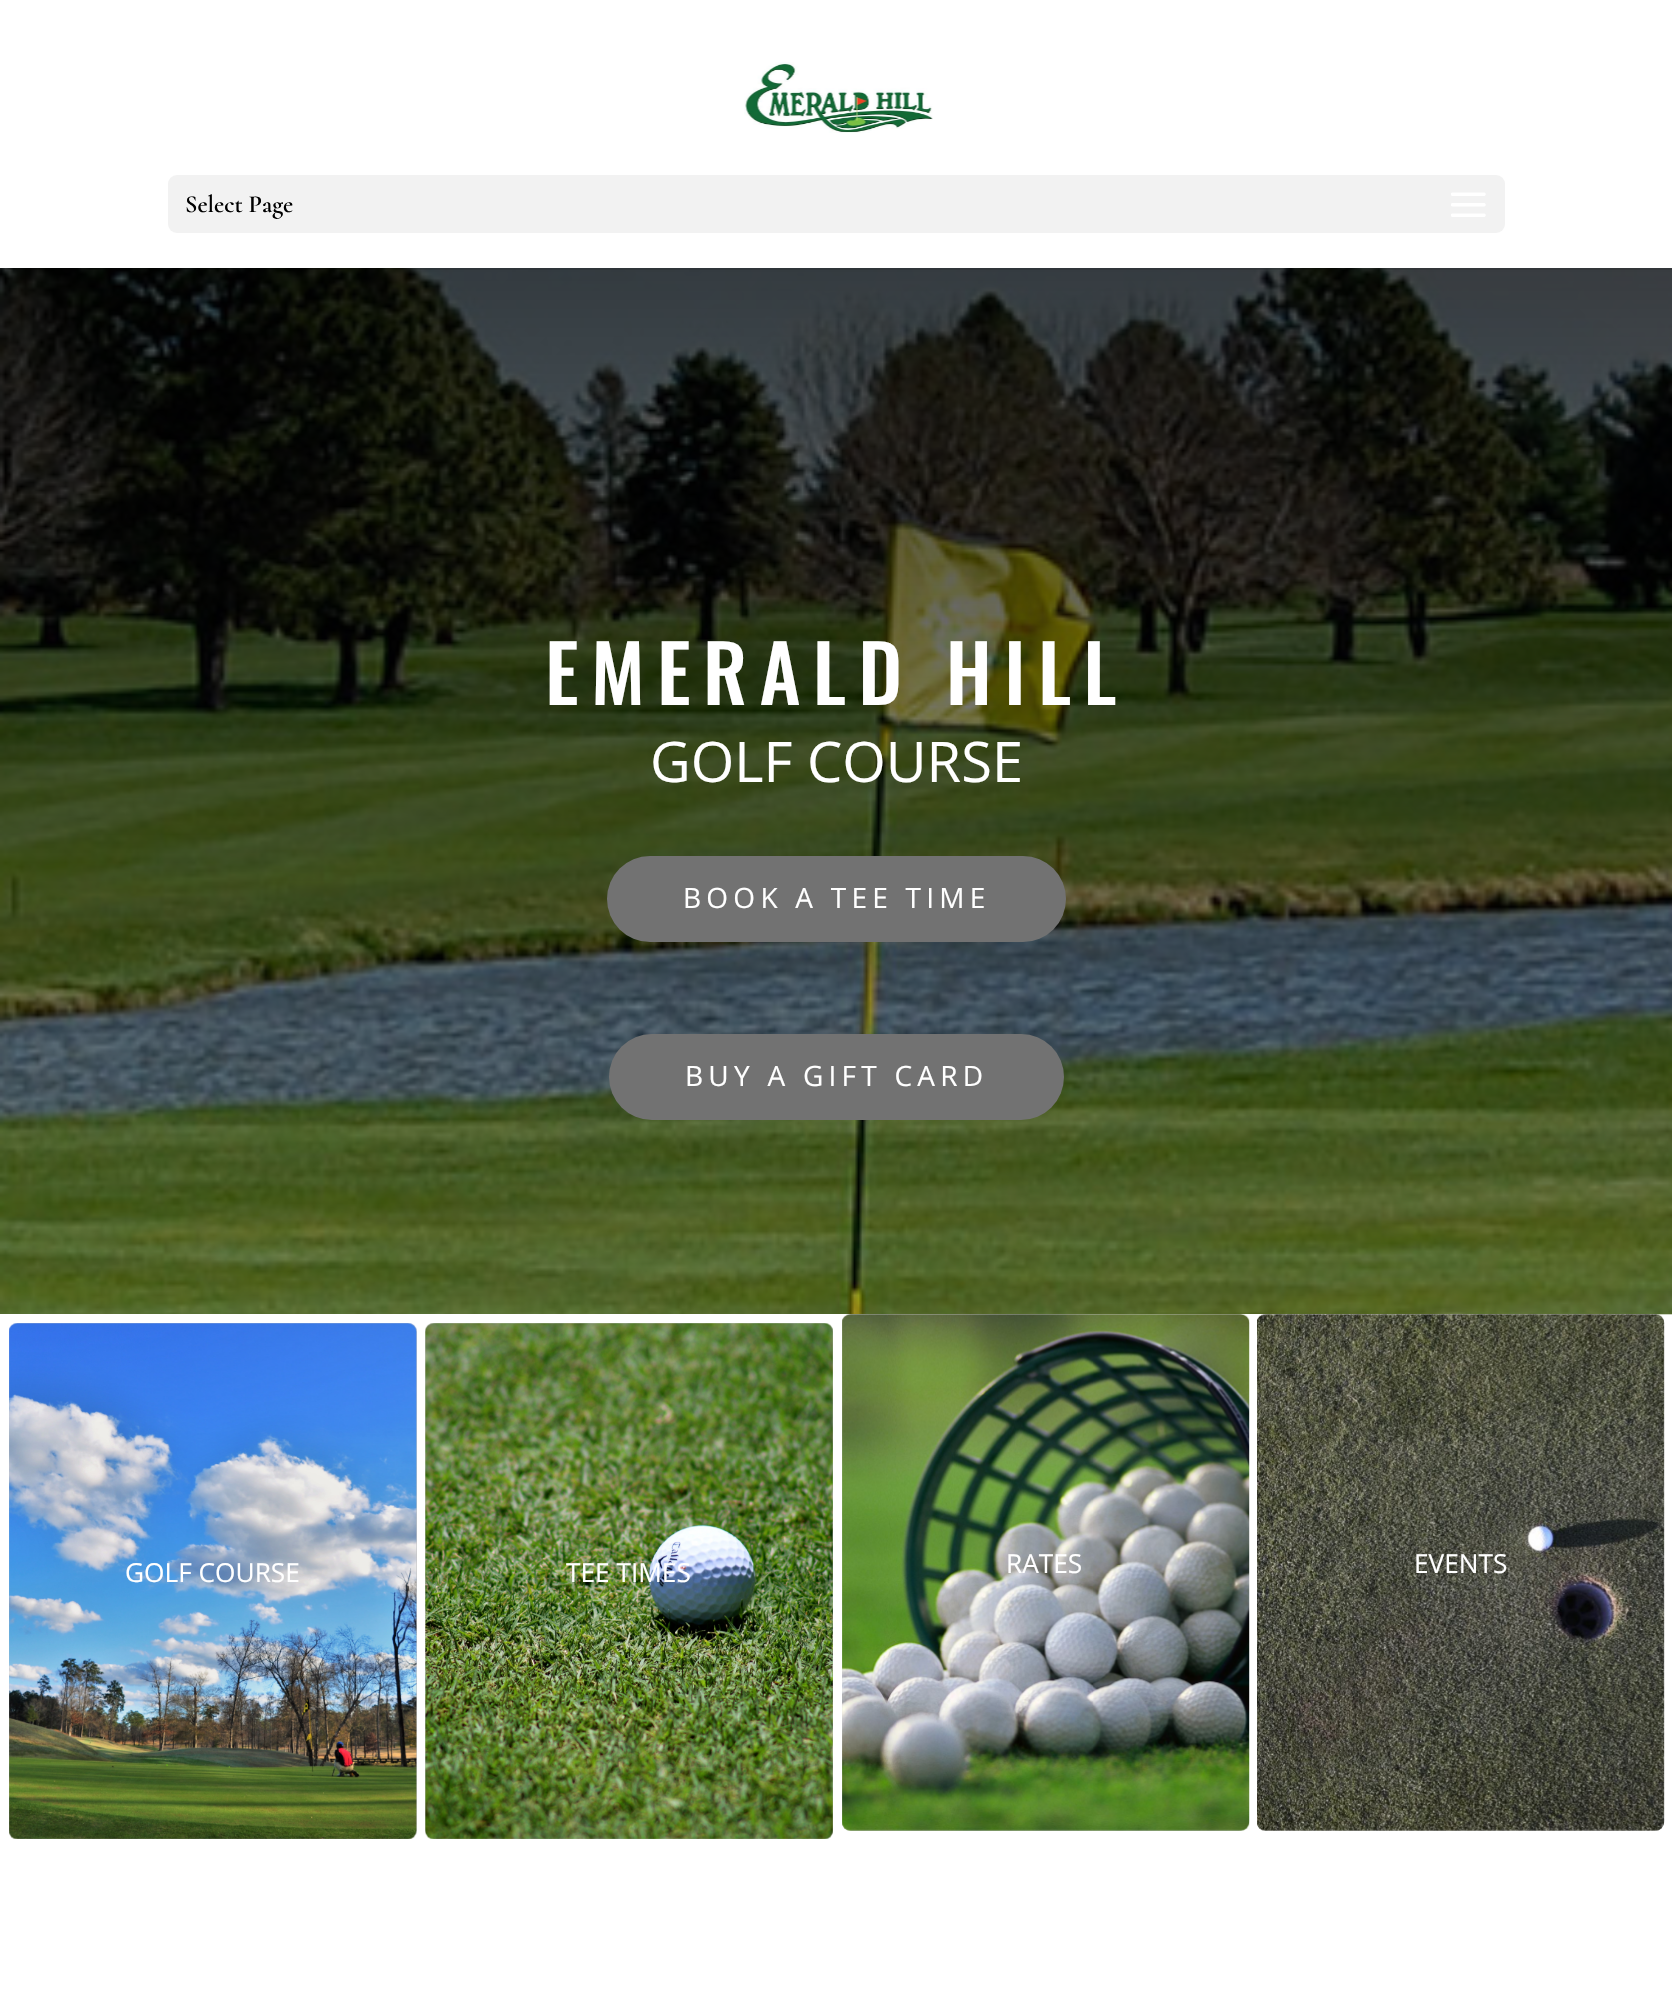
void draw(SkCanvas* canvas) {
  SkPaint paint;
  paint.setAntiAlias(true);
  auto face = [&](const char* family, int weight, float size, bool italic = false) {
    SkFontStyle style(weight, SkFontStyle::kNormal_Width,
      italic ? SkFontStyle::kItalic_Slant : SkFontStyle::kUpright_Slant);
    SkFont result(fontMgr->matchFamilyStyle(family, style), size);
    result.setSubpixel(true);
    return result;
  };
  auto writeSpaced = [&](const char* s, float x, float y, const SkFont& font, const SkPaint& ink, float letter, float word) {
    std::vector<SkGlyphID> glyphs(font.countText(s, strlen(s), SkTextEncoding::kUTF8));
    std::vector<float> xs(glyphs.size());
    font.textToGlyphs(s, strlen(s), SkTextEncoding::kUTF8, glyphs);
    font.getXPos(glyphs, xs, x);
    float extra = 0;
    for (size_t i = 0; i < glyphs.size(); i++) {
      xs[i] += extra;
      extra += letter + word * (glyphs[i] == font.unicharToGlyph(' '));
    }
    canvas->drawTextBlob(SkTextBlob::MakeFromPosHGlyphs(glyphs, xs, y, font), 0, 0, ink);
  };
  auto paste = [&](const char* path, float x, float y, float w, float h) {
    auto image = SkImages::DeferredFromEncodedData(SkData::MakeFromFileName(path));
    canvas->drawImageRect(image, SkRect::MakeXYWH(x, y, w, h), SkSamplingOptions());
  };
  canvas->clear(0xffffffff);
  paste("img/3.png", 0, 268, 1672, 1047);
  paint.setColor(0x1a000000);
  canvas->drawRect(SkRect::MakeXYWH(0, 268, 1672, 2), paint);
  paste("img/1.png", 744, 62, 189, 71);
  paint.setColor(0xfff2f2f2);
  canvas->drawRoundRect(SkRect::MakeXYWH(168, 175, 1337, 58), 9, 9, paint);
  paste("img/2.png", 1451, 192, 35, 25);
  paint.setColor(0xff727272);
  canvas->drawRoundRect(SkRect::MakeXYWH(607, 856, 459, 86), 43, 43, paint);
  canvas->drawRoundRect(SkRect::MakeXYWH(609, 1034, 455, 86), 43, 43, paint);
  paint.setColor(0xffffffff);
  canvas->drawRect(SkRect::MakeXYWH(0, 1314, 1656, 1), paint);
  paint.setColor(0xffc5c5c5);
  canvas->drawRoundRect(SkRect::MakeXYWH(9, 1323, 408, 516), 9, 9, paint);
  paste("img/4.png", 9, 1323, 408, 516);
  canvas->drawRoundRect(SkRect::MakeXYWH(425, 1323, 408, 516), 9, 9, paint);
  paste("img/5.png", 425, 1323, 408, 516);
  canvas->drawRoundRect(SkRect::MakeXYWH(842, 1314, 406, 517), 9, 9, paint);
  paste("img/6.png", 842, 1314, 408, 517);
  paint.setColor(0x3b000000);
  canvas->drawRoundRect(SkRect::MakeXYWH(1257, 1314, 407, 517), 9, 9, paint);
  paste("img/7.png", 1257, 1314, 408, 517);
  auto f0 = face("Cormorant", 600, 24.5f);
  paint.setColor(0xff000000);
  canvas->drawString("Select Page", 185, 212, f0, paint);
  auto f1 = face("Oswald", 500, 78.75f);
  paint.setColor(0xffffffff);
  writeSpaced("EMERALD HILL", 545, 705, f1, paint, 12.25f, 0);
  auto f2 = face("Open Sans", 400, 56);
  canvas->drawString("GOLF COURSE", 650, 782, f2, paint);
  auto f3 = face("Open Sans", 400, 28);
  writeSpaced("BOOK A TEE TIME", 683, 908, f3, paint, 5.25f, 0);
  writeSpaced("BUY A GIFT CARD", 685, 1086, f3, paint, 5.25f, 0);
  auto f4 = face("Open Sans", 400, 26.25f);
  {
    const struct { const char* s; float x, y; } items[] = {
      {"GOLF COURSE", 125, 1582},
      {"TEE TIMES", 566, 1582},
      {"RATES", 1006, 1573},
      {"EVENTS", 1414, 1573},
    };
    for (auto [s, x, y] : items) {
      canvas->drawString(s, x, y, f4, paint);
    }
  }
}
